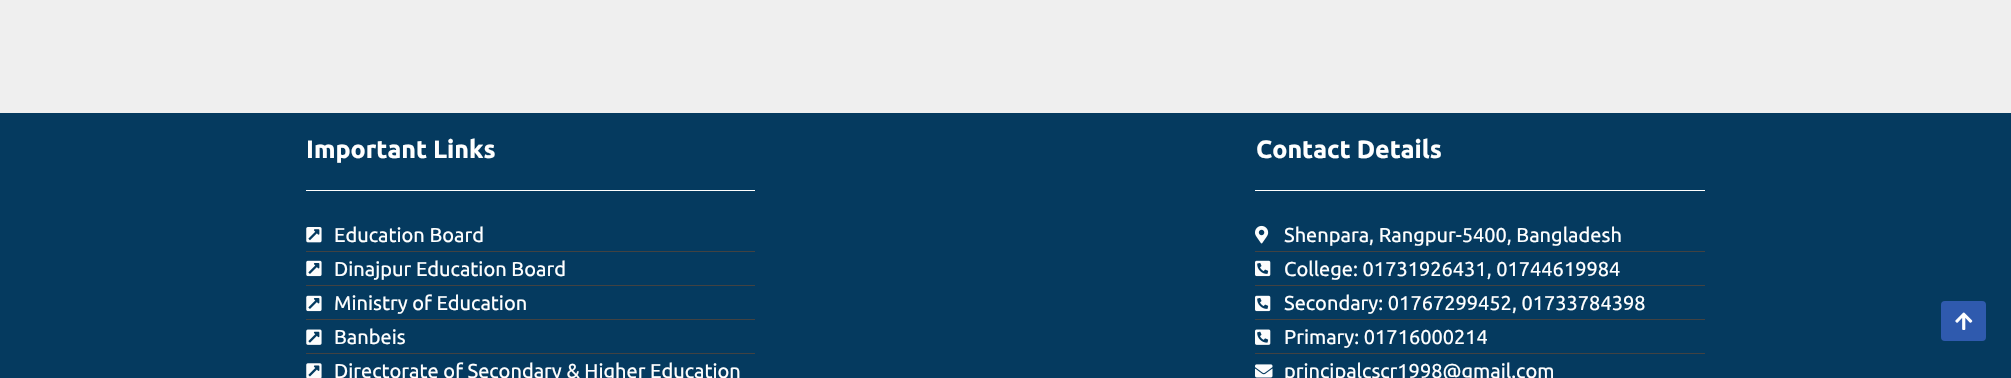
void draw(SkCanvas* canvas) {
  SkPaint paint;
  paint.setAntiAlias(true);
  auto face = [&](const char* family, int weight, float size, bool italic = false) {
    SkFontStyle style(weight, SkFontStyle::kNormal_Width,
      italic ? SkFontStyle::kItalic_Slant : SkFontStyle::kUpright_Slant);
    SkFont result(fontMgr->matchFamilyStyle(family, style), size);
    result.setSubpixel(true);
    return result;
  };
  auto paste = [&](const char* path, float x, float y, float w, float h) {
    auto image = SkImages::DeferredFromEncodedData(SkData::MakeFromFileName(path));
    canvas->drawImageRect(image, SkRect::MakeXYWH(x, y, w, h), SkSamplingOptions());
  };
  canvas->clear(0xffefefef);
  paint.setColor(0xff053a5f);
  canvas->drawRect(SkRect::MakeXYWH(0, 113, 2011, 265), paint);
  paint.setColor(0xffffffff);
  canvas->drawRect(SkRect::MakeXYWH(306, 190, 449, 1), paint);
  paste("img/1.png", 306, 227, 16, 16);
  paint.setColor(0xff424242);
  canvas->drawRect(SkRect::MakeXYWH(306, 251, 449, 1), paint);
  paste("img/2.png", 306, 260, 16, 17);
  canvas->drawRect(SkRect::MakeXYWH(306, 285, 449, 1), paint);
  paste("img/2.png", 306, 295, 16, 17);
  canvas->drawRect(SkRect::MakeXYWH(306, 319, 449, 1), paint);
  paste("img/3.png", 306, 329, 16, 16);
  canvas->drawRect(SkRect::MakeXYWH(306, 353, 449, 1), paint);
  paste("img/4.png", 306, 363, 16, 15);
  paint.setColor(0xffffffff);
  canvas->drawRect(SkRect::MakeXYWH(1255, 190, 450, 1), paint);
  paste("img/5.png", 1255, 225, 14, 19);
  paint.setColor(0xff424242);
  canvas->drawRect(SkRect::MakeXYWH(1255, 251, 450, 1), paint);
  paste("img/6.png", 1255, 260, 16, 17);
  canvas->drawRect(SkRect::MakeXYWH(1255, 285, 450, 1), paint);
  paste("img/6.png", 1255, 295, 16, 17);
  canvas->drawRect(SkRect::MakeXYWH(1255, 319, 450, 1), paint);
  paste("img/7.png", 1255, 329, 16, 16);
  canvas->drawRect(SkRect::MakeXYWH(1255, 353, 450, 1), paint);
  paste("img/8.png", 1255, 364, 18, 14);
  paint.setColor(0xff2f5aae);
  canvas->drawRoundRect(SkRect::MakeXYWH(1941, 301, 45, 40), 4, 4, paint);
  paste("img/9.png", 1955, 312, 18, 18);
  auto f0 = face("Ubuntu", 700, 25);
  paint.setColor(0xffffffff);
  canvas->drawString("Important Links", 306, 158, f0, paint);
  auto f1 = face("Ubuntu", 400, 20);
  {
    const struct { const char* s; float x, y; } items[] = {
      {"Education Board", 334, 242},
      {"Dinajpur Education Board", 334, 276},
      {"Ministry of Education", 334, 310},
      {"Banbeis", 334, 344},
      {"Directorate of Secondary & Higher Education", 334, 378},
    };
    for (auto [s, x, y] : items) {
      canvas->drawString(s, x, y, f1, paint);
    }
  }
  canvas->drawString("Contact Details", 1256, 158, f0, paint);
  {
    const struct { const char* s; float x, y; } items[] = {
      {"Shenpara, Rangpur-5400, Bangladesh", 1284, 242},
      {"College: 01731926431, 01744619984", 1284, 276},
      {"Secondary: 01767299452, 01733784398", 1284, 310},
      {"Primary: 01716000214", 1284, 344},
      {"principalcscr1998@gmail.com", 1284, 378},
    };
    for (auto [s, x, y] : items) {
      canvas->drawString(s, x, y, f1, paint);
    }
  }
}
